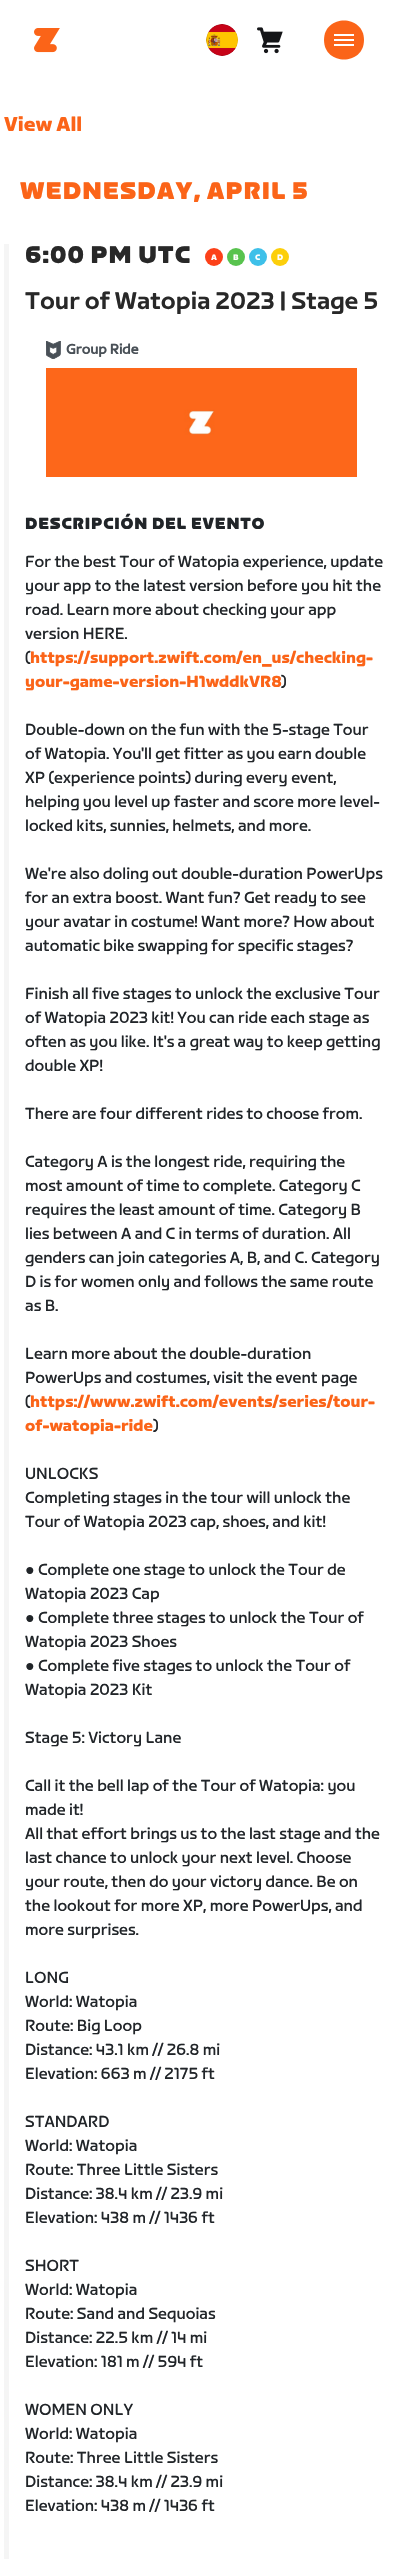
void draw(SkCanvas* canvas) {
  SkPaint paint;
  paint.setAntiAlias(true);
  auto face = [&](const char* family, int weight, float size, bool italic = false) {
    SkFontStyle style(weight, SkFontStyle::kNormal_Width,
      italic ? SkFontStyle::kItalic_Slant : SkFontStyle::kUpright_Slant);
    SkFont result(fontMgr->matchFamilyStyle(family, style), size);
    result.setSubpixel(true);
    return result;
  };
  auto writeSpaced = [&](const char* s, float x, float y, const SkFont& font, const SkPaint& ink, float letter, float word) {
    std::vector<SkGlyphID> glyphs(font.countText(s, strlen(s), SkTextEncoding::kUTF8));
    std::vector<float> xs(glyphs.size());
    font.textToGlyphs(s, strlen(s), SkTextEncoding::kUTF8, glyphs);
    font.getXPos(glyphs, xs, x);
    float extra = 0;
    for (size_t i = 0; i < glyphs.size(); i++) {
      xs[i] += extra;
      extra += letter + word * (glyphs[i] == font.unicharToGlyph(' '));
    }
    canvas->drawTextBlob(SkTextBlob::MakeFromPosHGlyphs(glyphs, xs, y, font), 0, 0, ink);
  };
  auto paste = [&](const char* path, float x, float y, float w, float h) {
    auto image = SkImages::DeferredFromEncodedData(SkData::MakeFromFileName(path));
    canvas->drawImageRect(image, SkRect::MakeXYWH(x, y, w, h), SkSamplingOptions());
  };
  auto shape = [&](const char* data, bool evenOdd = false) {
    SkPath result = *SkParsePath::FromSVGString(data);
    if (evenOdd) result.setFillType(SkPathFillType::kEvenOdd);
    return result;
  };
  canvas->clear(0xffffffff);
  paste("img/1.png", 34, 28, 26, 25);
  paste("img/2.png", 206, 24, 32, 32);
  paste("img/3.png", 257, 27, 26, 27);
  paint.setColor(0xfffb6418);
  canvas->drawPath(shape("M324 40C324 14 364 14 364 40C364 66 324 66 324 40Z"), paint);
  {
    const struct { float x, y, w, h; SkColor color; } items[] = {
      {334, 34, 20, 2, 0xffffffff},
      {334, 39, 20, 2, 0xffffffff},
      {334, 44, 20, 2, 0xffffffff},
      {4, 244, 5, 2315, 0xfff5f5f5},
    };
    for (auto [x, y, w, h, color] : items) {
      paint.setColor(color);
      canvas->drawRect(SkRect::MakeXYWH(x, y, w, h), paint);
    }
  }
  paint.setColor(0xfffc4119);
  canvas->drawCircle(214, 257, 9, paint);
  paste("img/4.png", 211, 254, 6, 6);
  paint.setColor(0xff58c34e);
  canvas->drawCircle(236, 257, 9, paint);
  paste("img/5.png", 233, 254, 6, 6);
  paint.setColor(0xff3ec0e9);
  canvas->drawCircle(258, 257, 9, paint);
  paste("img/6.png", 255, 254, 5, 6);
  paint.setColor(0xfffccf0b);
  canvas->drawCircle(280, 257, 9, paint);
  paste("img/7.png", 277, 254, 6, 6);
  paste("img/8.png", 46, 341, 15, 18);
  paste("img/9.png", 46, 368, 311, 109);
  auto f0 = face("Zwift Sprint", 700, 20);
  paint.setColor(0xfffb6418);
  canvas->drawString("View All", 4, 131, f0, paint);
  auto f1 = face("Zwift Sprint", 900, 24);
  writeSpaced("WEDNESDAY, APRIL 5", 20, 199, f1, paint, 1, 0);
  paint.setColor(0xff282828);
  writeSpaced("6:00 PM UTC", 25, 263, f1, paint, 1, 0);
  auto f2 = face("Zwift Sprint", 500, 24);
  canvas->drawString("Tour of Watopia 2023 | Stage 5", 25, 309, f2, paint);
  auto f3 = face("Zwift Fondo", 700, 14);
  paint.setColor(0xff495057);
  canvas->drawString("Group Ride", 66, 354, f3, paint);
  auto f4 = face("Zwift Sprint", 900, 16);
  paint.setColor(0xff212529);
  writeSpaced("DESCRIPCIÓN DEL EVENTO", 25, 529, f4, paint, 0.8f, 0);
  auto f5 = face("Zwift Sprint", 400, 16);
  {
    const struct { const char* s; float x, y; } items[] = {
      {"For the best Tour of Watopia experience, update", 25, 567},
      {"your app to the latest version before you hit the", 25, 591},
      {"road. Learn more about checking your app", 25, 615},
      {"version HERE.", 25, 639},
      {"(", 25, 663},
    };
    for (auto [s, x, y] : items) {
      canvas->drawString(s, x, y, f5, paint);
    }
  }
  auto f6 = face("Zwift Sprint", 700, 16);
  paint.setColor(0xfffb6418);
  canvas->drawString("https://support.zwift.com/en_us/checking-", 30, 663, f6, paint);
  canvas->drawString("your-game-version-H1wddkVR8", 25, 687, f6, paint);
  paint.setColor(0xff212529);
  {
    const struct { const char* s; float x, y; } items[] = {
      {")", 281, 687},
      {"Double-down on the fun with the 5-stage Tour", 25, 735},
      {"of Watopia. You'll get fitter as you earn double", 25, 759},
      {"XP (experience points) during every event,", 25, 783},
      {"helping you level up faster and score more level-", 25, 807},
      {"locked kits, sunnies, helmets, and more.", 25, 831},
      {"We're also doling out double-duration PowerUps", 25, 879},
      {"for an extra boost. Want fun? Get ready to see", 25, 903},
      {"your avatar in costume! Want more? How about", 25, 927},
      {"automatic bike swapping for specific stages?", 25, 951},
      {"Finish all five stages to unlock the exclusive Tour", 25, 999},
      {"of Watopia 2023 kit! You can ride each stage as", 25, 1023},
      {"often as you like. It's a great way to keep getting", 25, 1047},
      {"double XP!", 25, 1071},
      {"There are four different rides to choose from.", 25, 1119},
      {"Category A is the longest ride, requiring the", 25, 1167},
      {"most amount of time to complete. Category C", 25, 1191},
      {"requires the least amount of time. Category B", 25, 1215},
      {"lies between A and C in terms of duration. All", 25, 1239},
      {"genders can join categories A, B, and C. Category", 25, 1263},
      {"D is for women only and follows the same route", 25, 1287},
      {"as B.", 25, 1311},
      {"Learn more about the double-duration", 25, 1359},
      {"PowerUps and costumes, visit the event page", 25, 1383},
      {"(", 25, 1407},
    };
    for (auto [s, x, y] : items) {
      canvas->drawString(s, x, y, f5, paint);
    }
  }
  paint.setColor(0xfffb6418);
  canvas->drawString("https://www.zwift.com/events/series/tour-", 30, 1407, f6, paint);
  paint.setColor(0xff212529);
  canvas->drawString(")", 153, 1431, f5, paint);
  paint.setColor(0xfffb6418);
  canvas->drawString("of-watopia-ride", 25, 1431, f6, paint);
  paint.setColor(0xff212529);
  {
    const struct { const char* s; float x, y; } items[] = {
      {"UNLOCKS", 25, 1479},
      {"Completing stages in the tour will unlock the", 25, 1503},
      {"Tour of Watopia 2023 cap, shoes, and kit!", 25, 1527},
    };
    for (auto [s, x, y] : items) {
      canvas->drawString(s, x, y, f5, paint);
    }
  }
  auto f7 = face("Liberation Sans", 400, 16);
  canvas->drawString("●", 25, 1575, f7, paint);
  canvas->drawString("Complete one stage to unlock the Tour de", 38, 1575, f5, paint);
  canvas->drawString("Watopia 2023 Cap", 25, 1599, f5, paint);
  canvas->drawString("●", 25, 1623, f7, paint);
  canvas->drawString("Complete three stages to unlock the Tour of", 38, 1623, f5, paint);
  canvas->drawString("Watopia 2023 Shoes", 25, 1647, f5, paint);
  canvas->drawString("●", 25, 1671, f7, paint);
  {
    const struct { const char* s; float x, y; } items[] = {
      {"Complete five stages to unlock the Tour of", 38, 1671},
      {"Watopia 2023 Kit", 25, 1695},
      {"Stage 5: Victory Lane", 25, 1743},
      {"Call it the bell lap of the Tour of Watopia: you", 25, 1791},
      {"made it!", 25, 1815},
      {"All that effort brings us to the last stage and the", 25, 1839},
      {"last chance to unlock your next level. Choose", 25, 1863},
      {"your route, then do your victory dance. Be on", 25, 1887},
      {"the lookout for more XP, more PowerUps, and", 25, 1911},
      {"more surprises.", 25, 1935},
      {"LONG", 25, 1983},
      {"World: Watopia", 25, 2007},
      {"Route: Big Loop", 25, 2031},
      {"Distance: 43.1 km // 26.8 mi", 25, 2055},
      {"Elevation: 663 m // 2175 ft", 25, 2079},
      {"STANDARD", 25, 2127},
      {"World: Watopia", 25, 2151},
      {"Route: Three Little Sisters", 25, 2175},
      {"Distance: 38.4 km // 23.9 mi", 25, 2199},
      {"Elevation: 438 m // 1436 ft", 25, 2223},
      {"SHORT", 25, 2271},
      {"World: Watopia", 25, 2295},
      {"Route: Sand and Sequoias", 25, 2319},
      {"Distance: 22.5 km // 14 mi", 25, 2343},
      {"Elevation: 181 m // 594 ft", 25, 2367},
      {"WOMEN ONLY", 25, 2415},
      {"World: Watopia", 25, 2439},
      {"Route: Three Little Sisters", 25, 2463},
      {"Distance: 38.4 km // 23.9 mi", 25, 2487},
      {"Elevation: 438 m // 1436 ft", 25, 2511},
    };
    for (auto [s, x, y] : items) {
      canvas->drawString(s, x, y, f5, paint);
    }
  }
}
